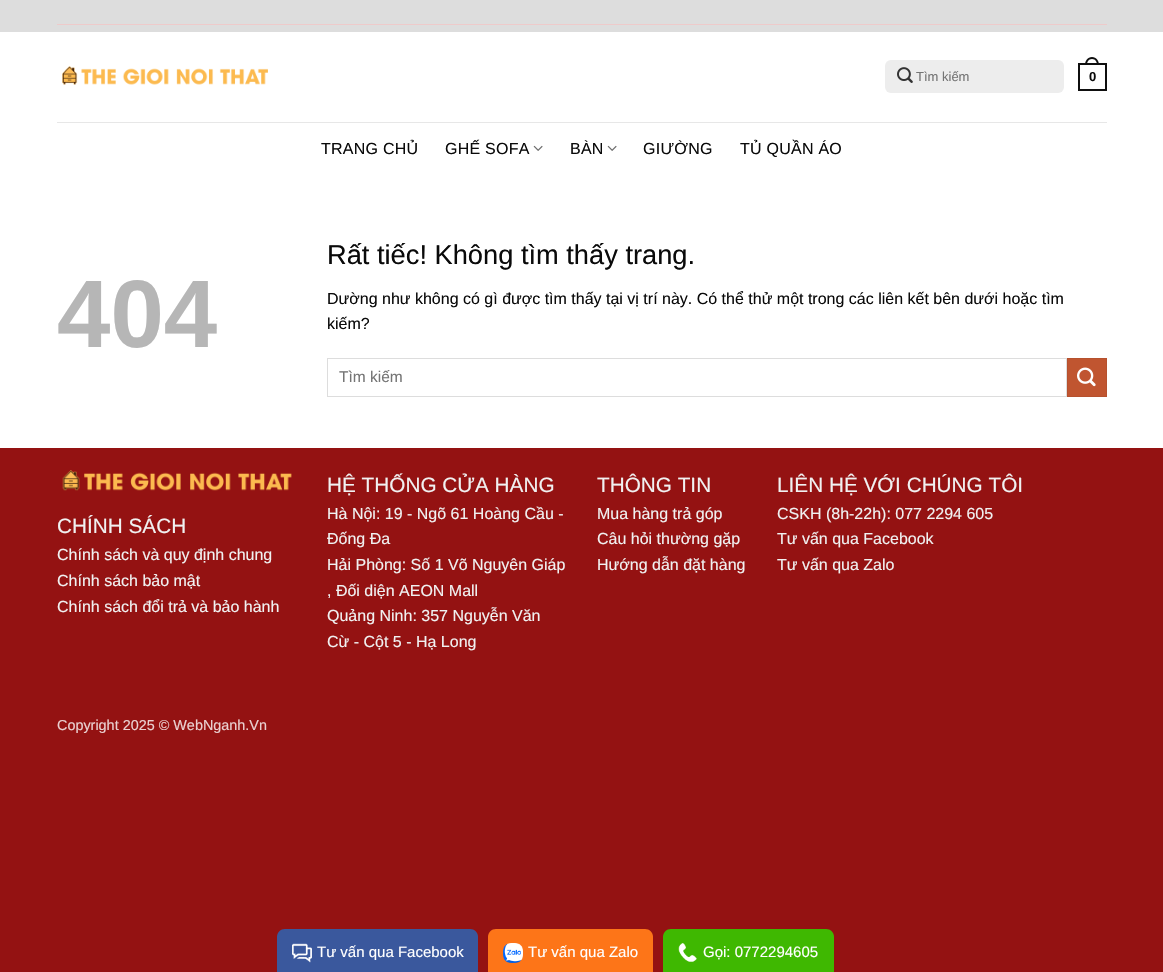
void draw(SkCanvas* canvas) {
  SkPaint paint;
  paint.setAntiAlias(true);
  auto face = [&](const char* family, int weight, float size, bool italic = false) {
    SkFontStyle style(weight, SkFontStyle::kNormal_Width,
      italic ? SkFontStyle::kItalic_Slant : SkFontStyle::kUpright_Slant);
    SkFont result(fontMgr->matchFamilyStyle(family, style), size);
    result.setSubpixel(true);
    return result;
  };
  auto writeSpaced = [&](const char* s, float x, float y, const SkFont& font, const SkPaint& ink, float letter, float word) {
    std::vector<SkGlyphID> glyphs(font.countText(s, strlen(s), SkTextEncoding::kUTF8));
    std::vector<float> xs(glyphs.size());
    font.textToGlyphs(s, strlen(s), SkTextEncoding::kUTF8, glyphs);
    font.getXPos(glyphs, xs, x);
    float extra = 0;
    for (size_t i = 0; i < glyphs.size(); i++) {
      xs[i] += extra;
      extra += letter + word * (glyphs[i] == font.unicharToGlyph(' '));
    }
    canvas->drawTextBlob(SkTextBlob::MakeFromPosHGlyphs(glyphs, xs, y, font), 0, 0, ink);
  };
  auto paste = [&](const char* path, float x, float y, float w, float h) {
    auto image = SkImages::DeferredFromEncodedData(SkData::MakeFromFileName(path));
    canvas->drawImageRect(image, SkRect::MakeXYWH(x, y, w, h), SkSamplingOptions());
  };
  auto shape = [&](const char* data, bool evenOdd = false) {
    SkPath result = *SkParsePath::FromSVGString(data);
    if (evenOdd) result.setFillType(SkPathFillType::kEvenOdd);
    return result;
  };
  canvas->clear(0xff941212);
  {
    const struct { float x, y, w, h; SkColor color; } items[] = {
      {0, 32, 1163, 416, 0xffffffff},
      {0, 0, 1163, 32, 0xffdddddd},
      {57, 24, 1050, 1, 0xffeecaca},
    };
    for (auto [x, y, w, h, color] : items) {
      paint.setColor(color);
      canvas->drawRect(SkRect::MakeXYWH(x, y, w, h), paint);
    }
  }
  paste("img/1.png", 62, 66, 206, 19);
  paint.setColor(0xffededed);
  canvas->drawRoundRect(SkRect::MakeXYWH(885, 60, 179, 33), 6, 6, paint);
  paste("img/2.png", 897, 67, 16, 16);
  paint.setStroke(true);
  paint.setStrokeWidth(2);
  paint.setColor(0xff0f0f0f);
  canvas->drawRect(SkRect::MakeXYWH(1079, 64, 27, 26), paint);
  paint.setStroke(false);
  canvas->drawPath(shape("M1092 57C1096.5 57 1099 61 1099 65H1085C1085 61 1087.5 57 1092 57ZM1092 59C1095.5 59 1097 62 1097 65H1087C1087 62 1088.5 59 1092 59Z", true), paint);
  paint.setColor(0xffe7e7e7);
  canvas->drawRect(SkRect::MakeXYWH(57, 122, 1050, 1), paint);
  paste("img/3.png", 533, 145, 10, 6);
  paste("img/3.png", 607, 145, 10, 6);
  paint.setStroke(true);
  paint.setStrokeWidth(1);
  paint.setColor(0xffdddddd);
  canvas->drawRect(SkRect::MakeXYWH(327.5f, 358.5f, 739, 38), paint);
  paint.setStroke(false);
  paint.setColor(0xffc05530);
  canvas->drawRect(SkRect::MakeXYWH(1067.5f, 358.5f, 39, 38), paint);
  paint.setStroke(true);
  paint.setColor(0xffb6512e);
  canvas->drawRect(SkRect::MakeXYWH(1067.5f, 358.5f, 39, 38), paint);
  paste("img/4.png", 1077, 367, 19, 20);
  paste("img/5.png", 62, 470, 230, 21);
  paint.setStroke(false);
  paint.setColor(0xff3a589d);
  canvas->drawPath(shape("M285 929H317V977H277V937C277 932.5 280.5 929 285 929Z"), paint);
  canvas->drawPath(shape("M317 929H470C474.5 929 478 932.5 478 937V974H317Z"), paint);
  paste("img/6.png", 292, 943, 20, 20);
  paint.setColor(0xfffd7518);
  canvas->drawPath(shape("M496 929H528V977H488V937C488 932.5 491.5 929 496 929Z"), paint);
  canvas->drawPath(shape("M528 929H645C649.5 929 653 932.5 653 937V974H528Z"), paint);
  paste("img/7.png", 503, 943, 20, 20);
  paint.setColor(0xff3fb801);
  canvas->drawPath(shape("M671 929H703V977H663V937C663 932.5 666.5 929 671 929Z"), paint);
  canvas->drawPath(shape("M703 929H826C830.5 929 834 932.5 834 937V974H703Z"), paint);
  paste("img/8.png", 678, 943, 19, 19);
  auto f0 = face("Liberation Sans", 400, 13);
  paint.setColor(0xff757575);
  canvas->drawString("Tìm kiếm", 916, 81, f0, paint);
  auto f1 = face("Liberation Sans", 700, 13);
  paint.setColor(0xff0a0a0a);
  canvas->drawString("0", 1089, 81, f1, paint);
  auto f2 = face("Liberation Sans", 400, 16);
  {
    const struct { const char* s; float x, y; } items[] = {
      {"TRANG CHỦ", 321, 154},
      {"GHẾ SOFA", 445, 154},
      {"BÀN", 570, 154},
      {"GIƯỜNG", 643, 154},
      {"TỦ QUẦN ÁO", 740, 154},
    };
    for (auto [s, x, y] : items) {
      writeSpaced(s, x, y, f2, paint, 0.25f, 0);
    }
  }
  auto f3 = face("Liberation Sans", 700, 96);
  paint.setColor(0xffb6b6b6);
  canvas->drawString("404", 57, 347, f3, paint);
  auto f4 = face("Liberation Sans", 400, 27.25f);
  paint.setColor(0xff0a0a0a);
  canvas->drawString("Rất tiếc! Không tìm thấy trang.", 327, 264, f4, paint);
  canvas->drawString("Dường như không có gì được tìm thấy tại vị trí này. Có thể thử một trong các liên kết bên dưới hoặc tìm", 327, 304, f2, paint);
  canvas->drawString("kiếm?", 327, 329, f2, paint);
  auto f5 = face("Liberation Sans", 400, 15.5f);
  paint.setColor(0xff757575);
  canvas->drawString("Tìm kiếm", 339, 382, f5, paint);
  auto f6 = face("Liberation Sans", 400, 20.75f);
  paint.setColor(0xfff1f1f1);
  canvas->drawString("CHÍNH SÁCH", 57, 533, f6, paint);
  {
    const struct { const char* s; float x, y; } items[] = {
      {"Chính sách và quy định chung", 57, 560},
      {"Chính sách bảo mật", 57, 586},
      {"Chính sách đổi trả và bảo hành", 57, 612},
    };
    for (auto [s, x, y] : items) {
      canvas->drawString(s, x, y, f2, paint);
    }
  }
  canvas->drawString("HỆ THỐNG CỬA HÀNG", 327, 492, f6, paint);
  {
    const struct { const char* s; float x, y; } items[] = {
      {"Hà Nội: 19 - Ngõ 61 Hoàng Cầu -", 327, 519},
      {"Đống Đa", 327, 544},
      {"Hải Phòng: Số 1 Võ Nguyên Giáp", 327, 570},
      {", Đối diện AEON Mall", 327, 596},
      {"Quảng Ninh: 357 Nguyễn Văn", 327, 621},
      {"Cừ - Cột 5 - Hạ Long", 327, 647},
    };
    for (auto [s, x, y] : items) {
      canvas->drawString(s, x, y, f2, paint);
    }
  }
  canvas->drawString("THÔNG TIN", 597, 492, f6, paint);
  {
    const struct { const char* s; float x, y; } items[] = {
      {"Mua hàng trả góp", 597, 519},
      {"Câu hỏi thường gặp", 597, 544},
      {"Hướng dẫn đặt hàng", 597, 570},
    };
    for (auto [s, x, y] : items) {
      canvas->drawString(s, x, y, f2, paint);
    }
  }
  canvas->drawString("LIÊN HỆ VỚI CHÚNG TÔI", 777, 492, f6, paint);
  {
    const struct { const char* s; float x, y; } items[] = {
      {"CSKH (8h-22h): 077 2294 605", 777, 519},
      {"Tư vấn qua Facebook", 777, 544},
      {"Tư vấn qua Zalo", 777, 570},
    };
    for (auto [s, x, y] : items) {
      canvas->drawString(s, x, y, f2, paint);
    }
  }
  auto f7 = face("Liberation Sans", 400, 14.4f);
  paint.setColor(0xffead0d0);
  canvas->drawString("Copyright 2025 © WebNganh.Vn", 57, 730, f7, paint);
  auto f8 = face("Liberation Sans", 400, 15);
  paint.setColor(0xffffffff);
  {
    const struct { const char* s; float x, y; } items[] = {
      {"Tư vấn qua Facebook", 317, 957},
      {"Tư vấn qua Zalo", 528, 957},
      {"Gọi: 0772294605", 703, 957},
    };
    for (auto [s, x, y] : items) {
      canvas->drawString(s, x, y, f8, paint);
    }
  }
}
